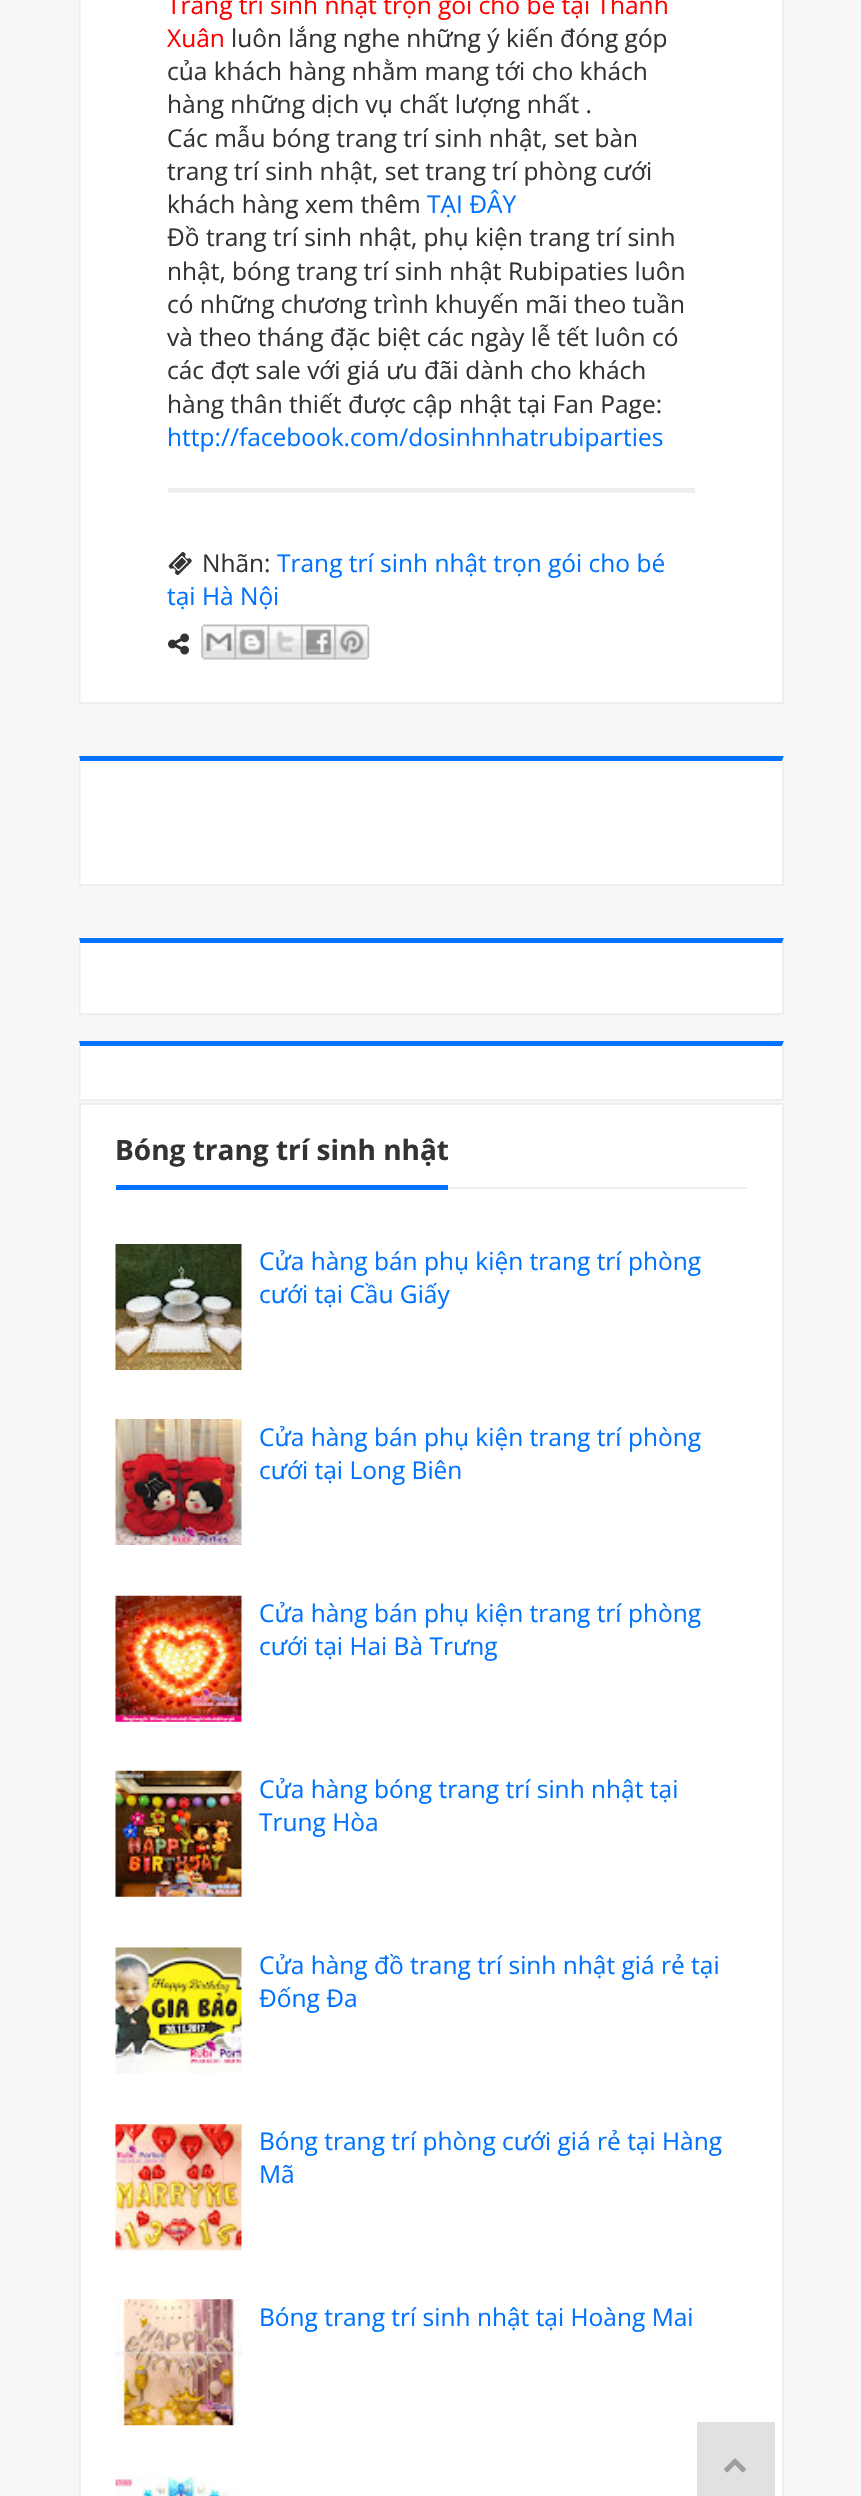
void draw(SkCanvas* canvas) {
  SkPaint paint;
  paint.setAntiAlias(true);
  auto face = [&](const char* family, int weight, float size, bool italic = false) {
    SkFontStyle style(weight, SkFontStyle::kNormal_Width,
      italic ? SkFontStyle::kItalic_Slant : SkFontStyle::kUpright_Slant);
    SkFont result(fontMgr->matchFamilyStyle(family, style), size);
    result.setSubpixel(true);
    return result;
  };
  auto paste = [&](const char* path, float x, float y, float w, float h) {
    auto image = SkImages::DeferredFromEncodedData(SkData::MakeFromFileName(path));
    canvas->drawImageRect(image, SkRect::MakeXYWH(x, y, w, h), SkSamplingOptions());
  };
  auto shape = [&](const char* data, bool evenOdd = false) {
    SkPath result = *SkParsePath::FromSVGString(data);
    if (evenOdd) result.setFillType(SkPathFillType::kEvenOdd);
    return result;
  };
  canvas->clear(0xfff7f7f7);
  paint.setColor(0xffffffff);
  canvas->drawRect(SkRect::MakeXYWH(81, 0, 701, 702), paint);
  paint.setColor(0xffeeeeee);
  canvas->drawPath(shape("M784-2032V704L782 702V-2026Z"), paint);
  canvas->drawRect(SkRect::MakeXYWH(79, 702, 705, 2), paint);
  canvas->drawPath(shape("M79 704V-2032L80-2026V702Z"), paint);
  canvas->drawRect(SkRect::MakeXYWH(168, 488, 527, 5), paint);
  paste("img/1.png", 168, 552, 24, 23);
  paste("img/2.png", 168, 633, 21, 22);
  paste("img/3.png", 201, 624, 36, 36);
  paste("img/4.png", 234, 624, 36, 36);
  paste("img/5.png", 267, 624, 36, 36);
  paste("img/6.png", 301, 624, 35, 36);
  paste("img/7.png", 334, 624, 36, 36);
  paint.setColor(0xffffffff);
  canvas->drawRect(SkRect::MakeXYWH(81, 761, 701, 123), paint);
  paint.setColor(0xff0072fe);
  canvas->drawPath(shape("M79 756H784L782 761H80Z"), paint);
  paint.setColor(0xffeeeeee);
  canvas->drawPath(shape("M784 756V886L782 884V761Z"), paint);
  canvas->drawRect(SkRect::MakeXYWH(79, 884, 705, 2), paint);
  canvas->drawPath(shape("M79 886V756L80 761V884Z"), paint);
  paint.setColor(0xffffffff);
  canvas->drawRect(SkRect::MakeXYWH(81, 943, 701, 70), paint);
  paint.setColor(0xff0072fe);
  canvas->drawPath(shape("M79 938H784L782 943H80Z"), paint);
  paint.setColor(0xffeeeeee);
  canvas->drawPath(shape("M784 938V1015L782 1013V943Z"), paint);
  canvas->drawRect(SkRect::MakeXYWH(79, 1013, 705, 2), paint);
  canvas->drawPath(shape("M79 1015V938L80 943V1013Z"), paint);
  paint.setColor(0xffffffff);
  canvas->drawRect(SkRect::MakeXYWH(81, 1047, 701, 52), paint);
  paint.setColor(0xff0072fe);
  canvas->drawPath(shape("M79 1041H784L782 1046H80Z"), paint);
  paint.setColor(0xffeeeeee);
  canvas->drawPath(shape("M784 1041V1101L782 1099V1046Z"), paint);
  canvas->drawRect(SkRect::MakeXYWH(79, 1099, 705, 2), paint);
  canvas->drawPath(shape("M79 1101V1041L80 1046V1099Z"), paint);
  paint.setColor(0xffffffff);
  canvas->drawRect(SkRect::MakeXYWH(80, 1104, 703, 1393), paint);
  paint.setStroke(true);
  paint.setStrokeWidth(2);
  paint.setColor(0xffeeeeee);
  canvas->drawRect(SkRect::MakeXYWH(80, 1104, 703, 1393), paint);
  paint.setStroke(false);
  canvas->drawRect(SkRect::MakeXYWH(448, 1187, 299, 2), paint);
  paint.setColor(0xff0072fe);
  canvas->drawRect(SkRect::MakeXYWH(116, 1185, 332, 5), paint);
  paste("img/8.png", 115, 1244, 127, 126);
  paste("img/9.png", 115, 1419, 127, 126);
  paste("img/10.png", 115, 1595, 127, 127);
  paste("img/11.png", 115, 1770, 127, 127);
  paste("img/12.png", 115, 1947, 127, 127);
  paste("img/13.png", 115, 2124, 127, 127);
  paste("img/14.png", 115, 2299, 127, 127);
  paste("img/15.png", 115, 2476, 127, 20);
  paint.setColor(0xffe1e1e1);
  canvas->drawRect(SkRect::MakeXYWH(697, 2422, 78, 74), paint);
  paste("img/16.png", 724, 2458, 22, 15);
  auto f0 = face("Open Sans", 400, 24.5f);
  paint.setColor(0xffff0000);
  canvas->drawString("Trang trí sinh nhật trọn gói cho bé tại Thanh", 167, 14, f0, paint);
  canvas->drawString("Xuân", 167, 47, f0, paint);
  paint.setColor(0xff333333);
  {
    const struct { const char* s; float x, y; } items[] = {
      {"luôn lắng nghe những ý kiến đóng góp", 231, 47},
      {"của khách hàng nhằm mang tới cho khách", 167, 80},
      {"hàng những dịch vụ chất lượng nhất .", 167, 113},
      {"Các mẫu bóng trang trí sinh nhật, set bàn", 167, 147},
      {"trang trí sinh nhật, set trang trí phòng cưới", 167, 180},
      {"khách hàng xem thêm", 167, 213},
    };
    for (auto [s, x, y] : items) {
      canvas->drawString(s, x, y, f0, paint);
    }
  }
  paint.setColor(0xff0072fe);
  canvas->drawString("TẠI ĐÂY", 427, 213, f0, paint);
  paint.setColor(0xff333333);
  {
    const struct { const char* s; float x, y; } items[] = {
      {"Đồ trang trí sinh nhật, phụ kiện trang trí sinh", 167, 246},
      {"nhật, bóng trang trí sinh nhật Rubipaties luôn", 167, 280},
      {"có những chương trình khuyến mãi theo tuần", 167, 313},
      {"và theo tháng đặc biệt các ngày lễ tết luôn có", 167, 346},
      {"các đợt sale với giá ưu đãi dành cho khách", 167, 379},
      {"hàng thân thiết được cập nhật tại Fan Page:", 167, 413},
    };
    for (auto [s, x, y] : items) {
      canvas->drawString(s, x, y, f0, paint);
    }
  }
  paint.setColor(0xff0072fe);
  canvas->drawString("http://facebook.com/dosinhnhatrubiparties", 167, 446, f0, paint);
  paint.setColor(0xff333333);
  canvas->drawString("Nhãn:", 202, 572, f0, paint);
  paint.setColor(0xff0072fe);
  canvas->drawString("Trang trí sinh nhật trọn gói cho bé", 277, 572, f0, paint);
  canvas->drawString("tại Hà Nội", 167, 605, f0, paint);
  auto f1 = face("Open Sans", 700, 28);
  paint.setColor(0xff333333);
  canvas->drawString("Bóng trang trí sinh nhật", 115, 1160, f1, paint);
  paint.setColor(0xff0072fe);
  {
    const struct { const char* s; float x, y; } items[] = {
      {"Cửa hàng bán phụ kiện trang trí phòng", 259, 1270},
      {"cưới tại Cầu Giấy", 259, 1303},
      {"Cửa hàng bán phụ kiện trang trí phòng", 259, 1446},
      {"cưới tại Long Biên", 259, 1479},
      {"Cửa hàng bán phụ kiện trang trí phòng", 259, 1622},
      {"cưới tại Hai Bà Trưng", 259, 1655},
      {"Cửa hàng bóng trang trí sinh nhật tại", 259, 1798},
      {"Trung Hòa", 259, 1831},
      {"Cửa hàng đồ trang trí sinh nhật giá rẻ tại", 259, 1974},
      {"Đống Đa", 259, 2007},
      {"Bóng trang trí phòng cưới giá rẻ tại Hàng", 259, 2150},
      {"Mã", 259, 2183},
      {"Bóng trang trí sinh nhật tại Hoàng Mai", 259, 2326},
    };
    for (auto [s, x, y] : items) {
      canvas->drawString(s, x, y, f0, paint);
    }
  }
}
